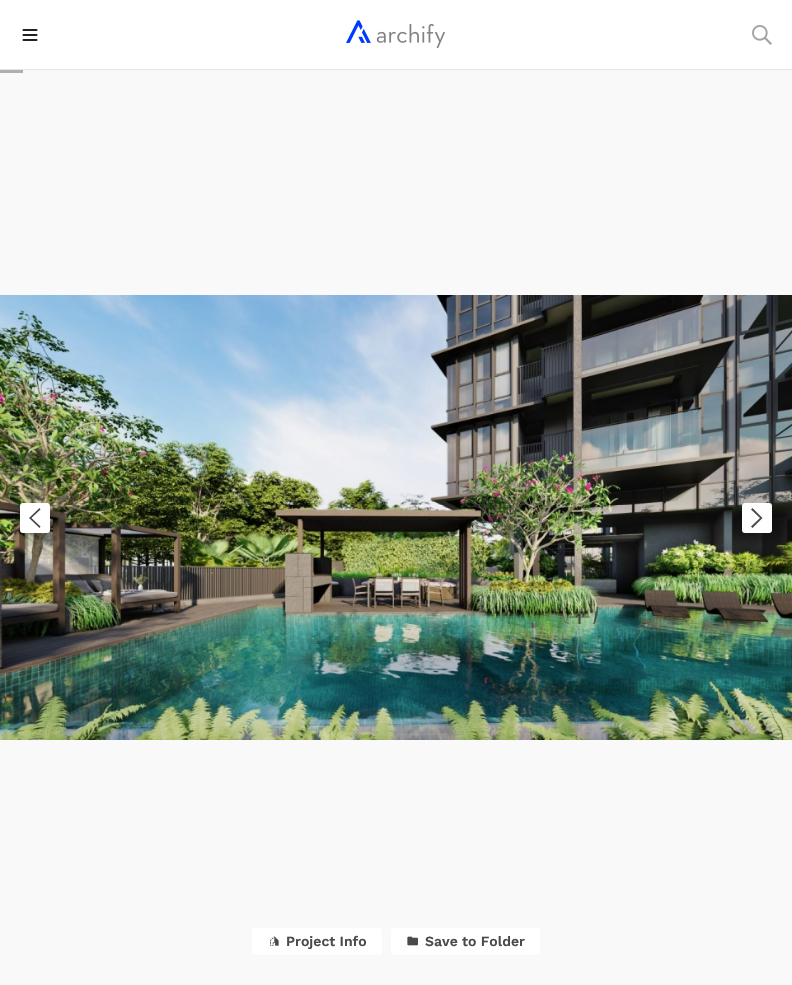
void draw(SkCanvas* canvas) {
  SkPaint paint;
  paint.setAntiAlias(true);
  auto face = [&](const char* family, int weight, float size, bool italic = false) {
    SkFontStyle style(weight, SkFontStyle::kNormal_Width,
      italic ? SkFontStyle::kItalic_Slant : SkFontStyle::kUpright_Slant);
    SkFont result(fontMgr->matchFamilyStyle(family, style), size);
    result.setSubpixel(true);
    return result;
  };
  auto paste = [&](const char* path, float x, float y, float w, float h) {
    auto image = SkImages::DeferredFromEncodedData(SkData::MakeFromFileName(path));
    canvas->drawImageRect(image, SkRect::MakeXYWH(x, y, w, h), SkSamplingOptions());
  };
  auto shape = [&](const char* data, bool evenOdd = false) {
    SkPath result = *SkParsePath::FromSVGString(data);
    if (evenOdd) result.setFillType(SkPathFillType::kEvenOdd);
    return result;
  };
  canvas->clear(0xfff9f9f9);
  paint.setColor(0xffffffff);
  canvas->drawRect(SkRect::MakeXYWH(0, 0, 792, 69), paint);
  paint.setColor(0xffe5e5e5);
  canvas->drawRect(SkRect::MakeXYWH(0, 69, 792, 1), paint);
  paste("img/1.png", 22, 29, 16, 12);
  paste("img/2.png", 346, 20, 99, 28);
  paste("img/3.png", 752, 25, 20, 20);
  paste("img/4.png", 0, 70, 23, 3);
  paste("img/5.png", 0, 295, 792, 445);
  paint.setColor(0xffffffff);
  canvas->drawRoundRect(SkRect::MakeXYWH(20, 503, 30, 30), 3, 3, paint);
  paint.setColor(0xff4a4a4a);
  canvas->drawPath(shape("M39.5 508L29 518L39.5 528L40.5 526.5L31.5 518L40.5 509.5Z", true), paint);
  paint.setColor(0xfffefefe);
  canvas->drawRoundRect(SkRect::MakeXYWH(742, 503, 30, 30), 3, 3, paint);
  paint.setColor(0xff4a4a4a);
  canvas->drawPath(shape("M752.5 528L762.5 518L752.5 508L751 509.5L760 518L751 526.5Z", true), paint);
  paint.setColor(0xffffffff);
  canvas->drawRoundRect(SkRect::MakeXYWH(252, 928, 130, 27), 3, 3, paint);
  paste("img/6.png", 270, 936, 9, 10);
  canvas->drawRoundRect(SkRect::MakeXYWH(391, 928, 149, 27), 3, 3, paint);
  paste("img/7.png", 407, 936, 11, 10);
  auto f0 = face("Work Sans", 600, 14);
  paint.setColor(0xff4a4a4a);
  canvas->drawString("Project Info", 286, 946, f0, paint);
  canvas->drawString("Save to Folder", 425, 946, f0, paint);
}
